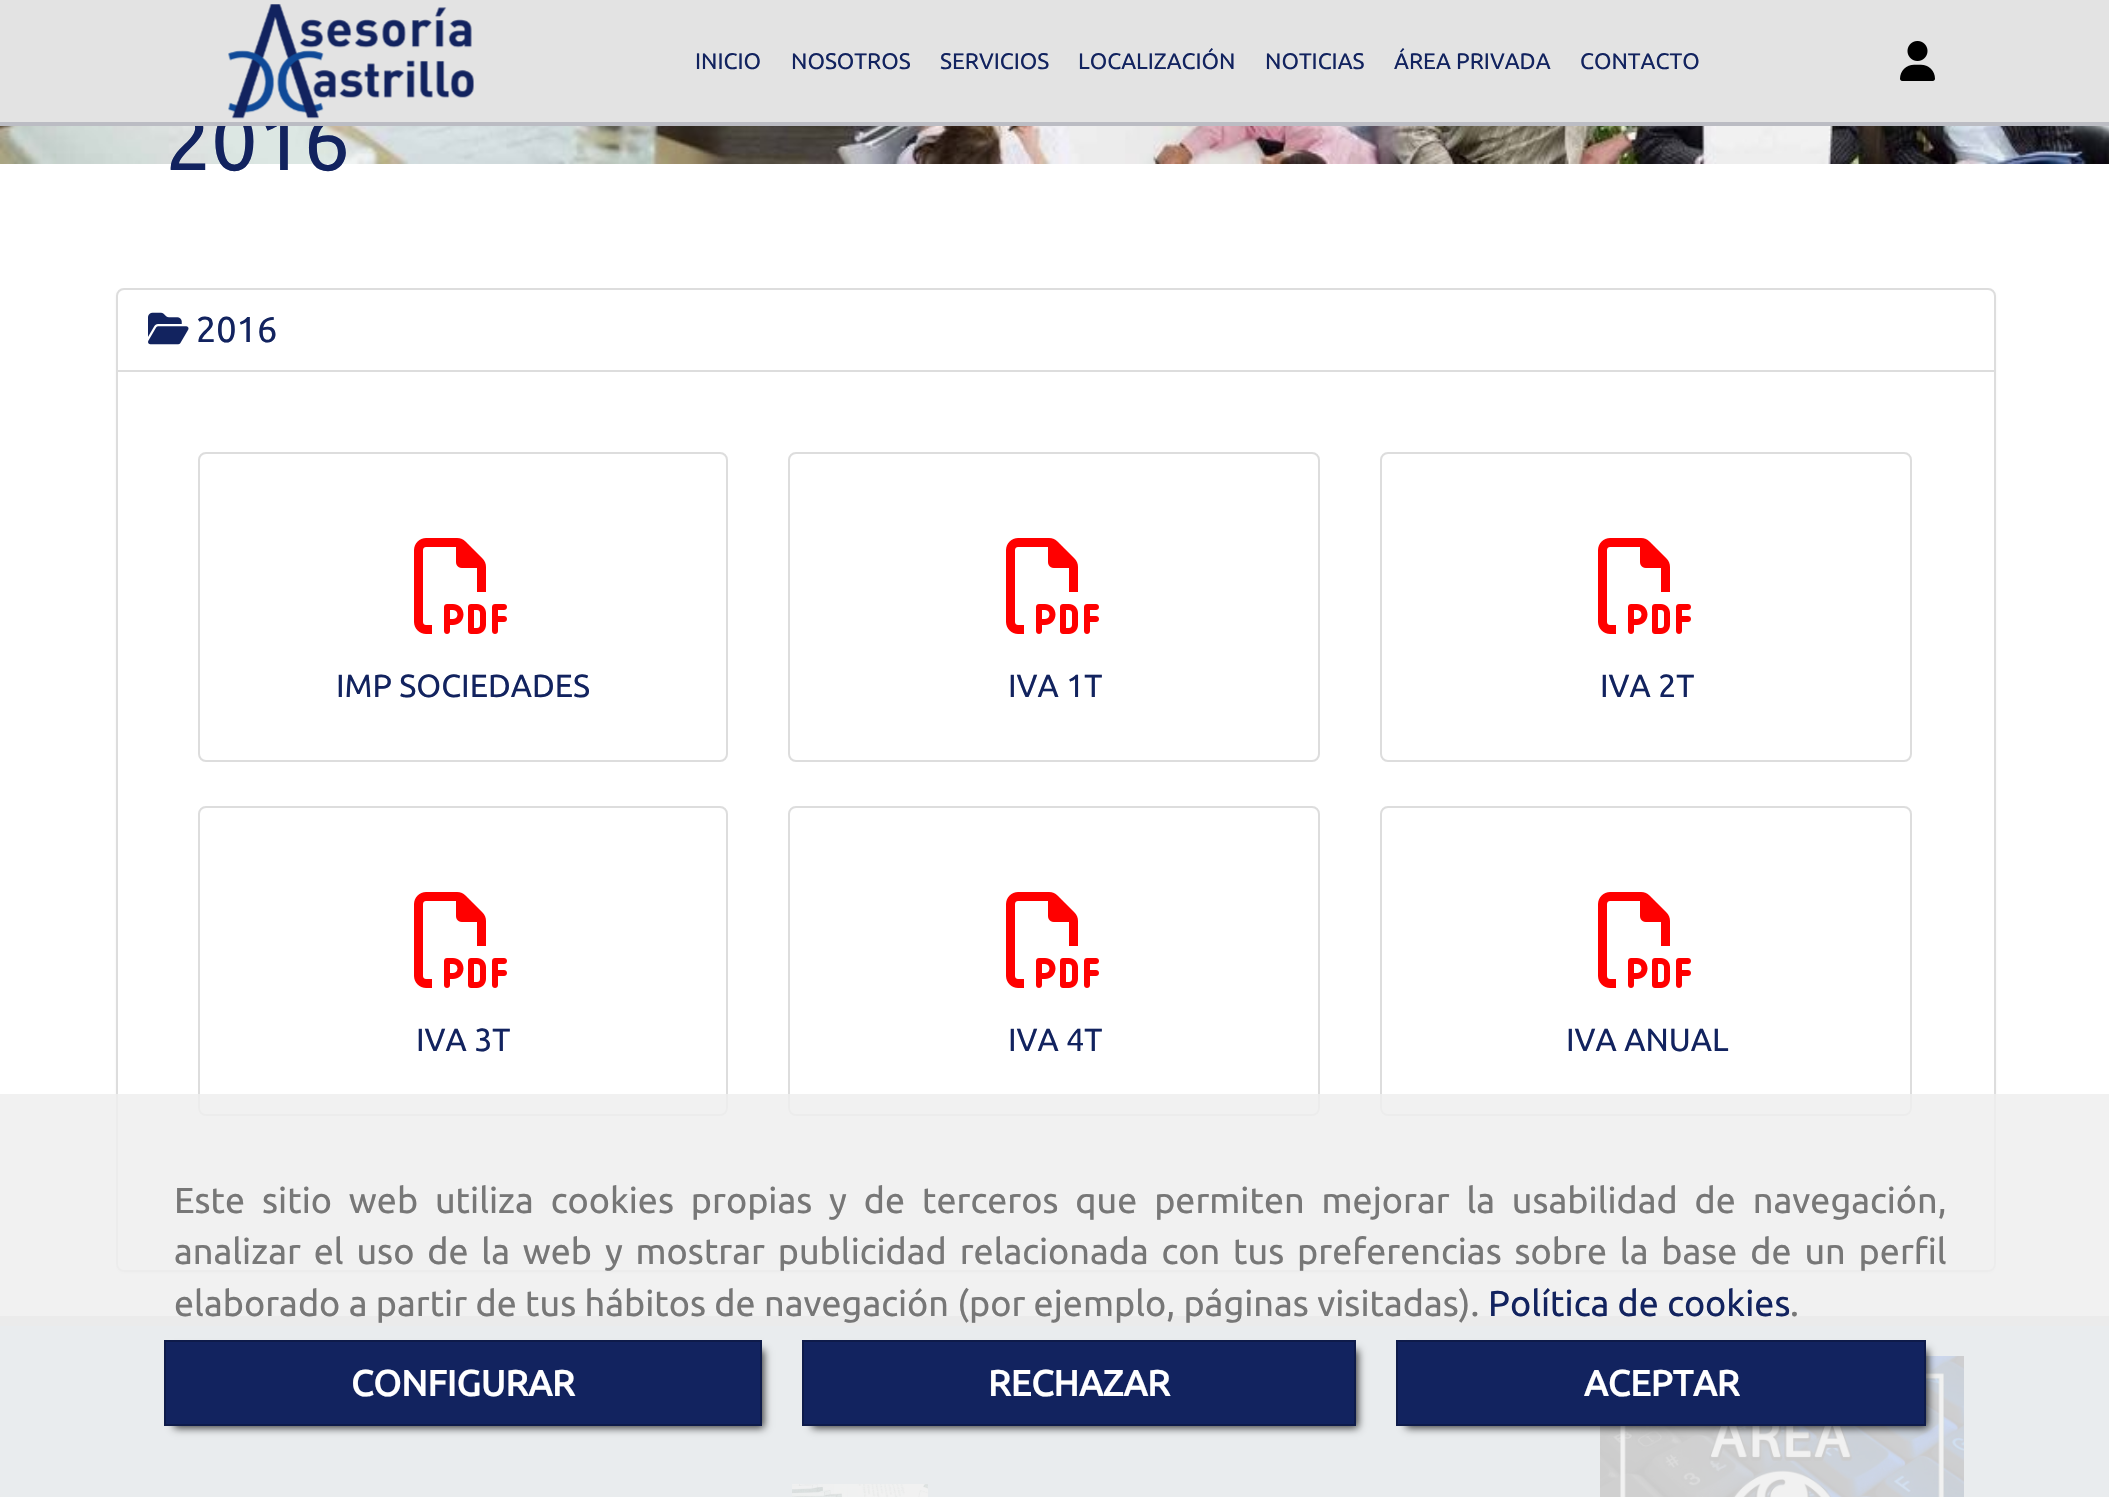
void draw(SkCanvas* canvas) {
  SkPaint paint;
  paint.setAntiAlias(true);
  auto face = [&](const char* family, int weight, float size, bool italic = false) {
    SkFontStyle style(weight, SkFontStyle::kNormal_Width,
      italic ? SkFontStyle::kItalic_Slant : SkFontStyle::kUpright_Slant);
    SkFont result(fontMgr->matchFamilyStyle(family, style), size);
    result.setSubpixel(true);
    return result;
  };
  auto writeSpaced = [&](const char* s, float x, float y, const SkFont& font, const SkPaint& ink, float letter, float word) {
    std::vector<SkGlyphID> glyphs(font.countText(s, strlen(s), SkTextEncoding::kUTF8));
    std::vector<float> xs(glyphs.size());
    font.textToGlyphs(s, strlen(s), SkTextEncoding::kUTF8, glyphs);
    font.getXPos(glyphs, xs, x);
    float extra = 0;
    for (size_t i = 0; i < glyphs.size(); i++) {
      xs[i] += extra;
      extra += letter + word * (glyphs[i] == font.unicharToGlyph(' '));
    }
    canvas->drawTextBlob(SkTextBlob::MakeFromPosHGlyphs(glyphs, xs, y, font), 0, 0, ink);
  };
  auto paste = [&](const char* path, float x, float y, float w, float h) {
    auto image = SkImages::DeferredFromEncodedData(SkData::MakeFromFileName(path));
    canvas->drawImageRect(image, SkRect::MakeXYWH(x, y, w, h), SkSamplingOptions());
  };
  auto shape = [&](const char* data, bool evenOdd = false) {
    SkPath result = *SkParsePath::FromSVGString(data);
    if (evenOdd) result.setFillType(SkPathFillType::kEvenOdd);
    return result;
  };
  canvas->clear(0xffffffff);
  paste("img/3.png", 0, 126, 2109, 38);
  canvas->save();
  canvas->clipPath(shape("M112 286H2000V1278H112ZM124 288H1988C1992.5 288 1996 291.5 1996 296V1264C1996 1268.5 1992.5 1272 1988 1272H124C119.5 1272 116 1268.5 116 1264V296C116 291.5 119.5 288 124 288Z", true), true);
  paint.setColor(0x0d000000);
  paint.setMaskFilter(SkMaskFilter::MakeBlur(kNormal_SkBlurStyle, 1));
  canvas->drawRoundRect(SkRect::MakeXYWH(116, 290, 1880, 984), 8, 8, paint);
  paint.setMaskFilter(nullptr);
  canvas->restore();
  paint.setStroke(true);
  paint.setStrokeWidth(2);
  paint.setColor(0xffdddddd);
  canvas->drawRoundRect(SkRect::MakeXYWH(117, 289, 1878, 982), 7, 7, paint);
  paste("img/4.png", 148, 312, 41, 33);
  paint.setStroke(false);
  canvas->drawRect(SkRect::MakeXYWH(118, 370, 1876, 2), paint);
  paint.setStroke(true);
  canvas->drawRoundRect(SkRect::MakeXYWH(199, 453, 528, 308), 7, 7, paint);
  paste("img/5.png", 414, 538, 93, 96);
  canvas->drawRoundRect(SkRect::MakeXYWH(789, 453, 530, 308), 7, 7, paint);
  paste("img/5.png", 1006, 538, 93, 96);
  canvas->drawRoundRect(SkRect::MakeXYWH(1381, 453, 530, 308), 7, 7, paint);
  paste("img/5.png", 1598, 538, 93, 96);
  canvas->drawRoundRect(SkRect::MakeXYWH(199, 807, 528, 308), 7, 7, paint);
  paste("img/5.png", 414, 892, 93, 96);
  canvas->drawRoundRect(SkRect::MakeXYWH(789, 807, 530, 308), 7, 7, paint);
  paste("img/5.png", 1006, 892, 93, 96);
  canvas->drawRoundRect(SkRect::MakeXYWH(1381, 807, 530, 308), 7, 7, paint);
  paste("img/5.png", 1598, 892, 93, 96);
  paint.setStroke(false);
  paint.setColor(0xffc7d8e6);
  canvas->drawRect(SkRect::MakeXYWH(0, 1326, 2109, 171), paint);
  paint.setColor(0xffd3d3d3);
  canvas->drawRect(SkRect::MakeXYWH(0, 1316, 2109, 10), paint);
  paste("img/6.png", 792, 1484, 136, 13);
  paste("img/7.png", 1600, 1356, 364, 141);
  paint.setColor(0xd9eeeeee);
  canvas->drawRect(SkRect::MakeXYWH(0, 1094, 2109, 403), paint);
  paint.setColor(0xbf000000);
  paint.setMaskFilter(SkMaskFilter::MakeBlur(kNormal_SkBlurStyle, 4));
  canvas->drawRect(SkRect::MakeXYWH(174, 1350, 590, 78), paint);
  paint.setMaskFilter(nullptr);
  paint.setColor(0xff12235f);
  canvas->drawRect(SkRect::MakeXYWH(165, 1341, 596, 84), paint);
  paint.setStroke(true);
  paint.setColor(0xff0e1b4a);
  canvas->drawRect(SkRect::MakeXYWH(165, 1341, 596, 84), paint);
  paint.setStroke(false);
  paint.setColor(0xbf000000);
  paint.setMaskFilter(SkMaskFilter::MakeBlur(kNormal_SkBlurStyle, 4));
  canvas->drawRect(SkRect::MakeXYWH(812, 1350, 546, 78), paint);
  paint.setMaskFilter(nullptr);
  paint.setColor(0xff12235f);
  canvas->drawRect(SkRect::MakeXYWH(803, 1341, 552, 84), paint);
  paint.setStroke(true);
  paint.setColor(0xff0e1b4a);
  canvas->drawRect(SkRect::MakeXYWH(803, 1341, 552, 84), paint);
  paint.setStroke(false);
  paint.setColor(0xbf000000);
  paint.setMaskFilter(SkMaskFilter::MakeBlur(kNormal_SkBlurStyle, 4));
  canvas->drawRect(SkRect::MakeXYWH(1406, 1350, 522, 78), paint);
  paint.setMaskFilter(nullptr);
  paint.setColor(0xff12235f);
  canvas->drawRect(SkRect::MakeXYWH(1397, 1341, 528, 84), paint);
  paint.setStroke(true);
  paint.setColor(0xff0e1b4a);
  canvas->drawRect(SkRect::MakeXYWH(1397, 1341, 528, 84), paint);
  auto f0 = face("Ubuntu", 400, 82);
  paint.setStroke(false);
  paint.setColor(0xff12235f);
  canvas->drawString("2016", 165, 170, f0, paint);
  paint.setColor(0xffe3e3e3);
  canvas->drawRect(SkRect::MakeXYWH(0, 0, 2109, 122), paint);
  paste("img/2.png", 1900, 41, 35, 40);
  auto f1 = face("Ubuntu", 400, 22.5f);
  paint.setColor(0xff12235f);
  {
    const struct { const char* s; float x, y; } items[] = {
      {"CONTACTO", 1580, 69},
      {"ÁREA PRIVADA", 1394, 69},
      {"NOTICIAS", 1265, 69},
      {"LOCALIZACIÓN", 1078, 69},
      {"SERVICIOS", 940, 69},
      {"NOSOTROS", 791, 69},
      {"INICIO", 695, 69},
    };
    for (auto [s, x, y] : items) {
      canvas->drawString(s, x, y, f1, paint);
    }
  }
  paste("img/1.png", 228, 4, 246, 115);
  paint.setColor(0xffbbbcc3);
  canvas->drawRect(SkRect::MakeXYWH(0, 122, 2109, 4), paint);
  auto f2 = face("Ubuntu", 400, 36);
  paint.setColor(0xff12235f);
  canvas->drawString("2016", 196, 342, f2, paint);
  auto f3 = face("Ubuntu", 400, 32);
  {
    const struct { const char* s; float x, y; } items[] = {
      {"IMP SOCIEDADES", 336, 697},
      {"IVA 1T", 1008, 697},
      {"IVA 2T", 1600, 697},
      {"IVA 3T", 416, 1051},
      {"IVA 4T", 1008, 1051},
      {"IVA ANUAL", 1566, 1051},
    };
    for (auto [s, x, y] : items) {
      canvas->drawString(s, x, y, f3, paint);
    }
  }
  paint.setColor(0xff777777);
  writeSpaced("Este sitio web utiliza cookies propias y de terceros que permiten mejorar la usabilidad de navegación,", 174, 1213, f2, paint, 0, 8.5f);
  writeSpaced("analizar el uso de la web y mostrar publicidad relacionada con tus preferencias sobre la base de un perfil", 174, 1264, f2, paint, 0, 4.5f);
  canvas->drawString("elaborado a partir de tus hábitos de navegación (por ejemplo, páginas visitadas).", 174, 1316, f2, paint);
  paint.setColor(0xff12235f);
  canvas->drawString("Política de cookies", 1488, 1316, f2, paint);
  paint.setColor(0xff777777);
  canvas->drawString(".", 1790, 1316, f2, paint);
  auto f4 = face("Ubuntu", 700, 36);
  paint.setColor(0xffffffff);
  {
    const struct { const char* s; float x, y; } items[] = {
      {"CONFIGURAR", 351, 1396},
      {"RECHAZAR", 988, 1396},
      {"ACEPTAR", 1584, 1396},
    };
    for (auto [s, x, y] : items) {
      canvas->drawString(s, x, y, f4, paint);
    }
  }
}
